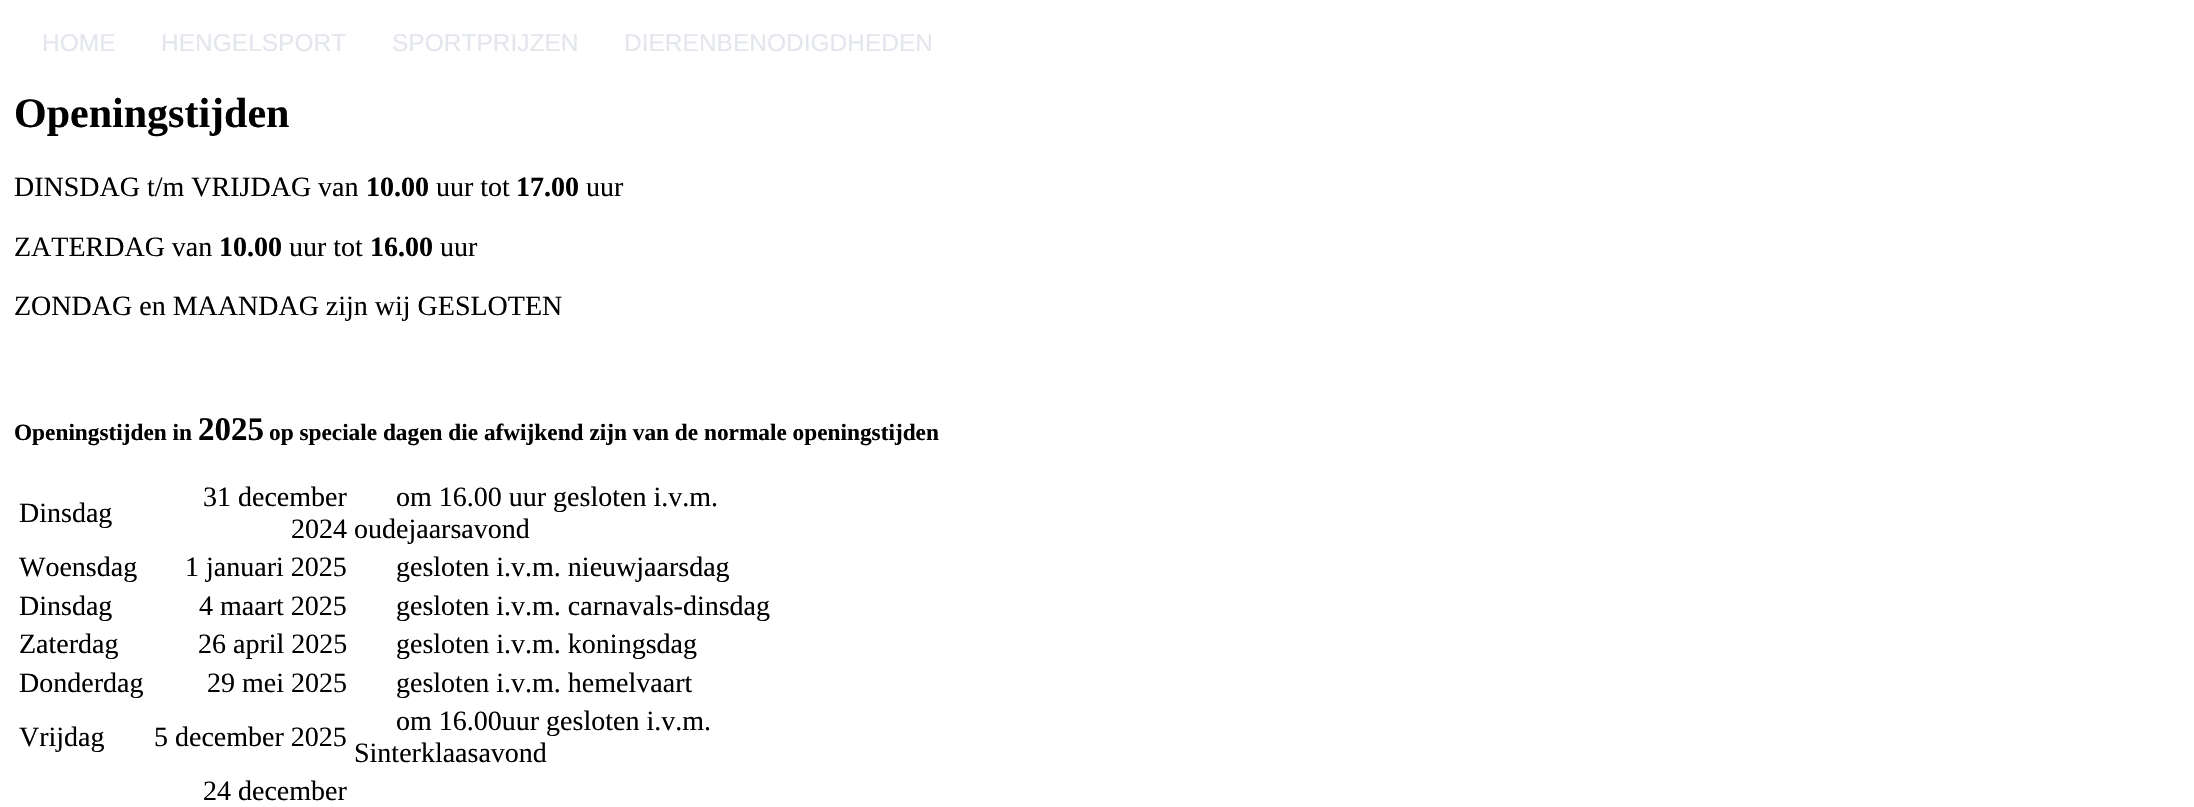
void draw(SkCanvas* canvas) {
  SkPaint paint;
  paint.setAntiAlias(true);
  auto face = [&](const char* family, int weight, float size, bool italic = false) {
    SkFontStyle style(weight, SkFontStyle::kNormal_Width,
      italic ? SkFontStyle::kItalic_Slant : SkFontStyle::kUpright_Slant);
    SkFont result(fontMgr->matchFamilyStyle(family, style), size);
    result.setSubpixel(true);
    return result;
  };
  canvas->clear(0xffffffff);
  auto f0 = face("Liberation Sans", 400, 24.5f);
  paint.setColor(0xffe3e7ed);
  {
    const struct { const char* s; float x, y; } items[] = {
      {"HOME", 42, 51},
      {"HENGELSPORT", 161, 51},
      {"SPORTPRIJZEN", 392, 51},
      {"DIERENBENODIGDHEDEN", 624, 51},
    };
    for (auto [s, x, y] : items) {
      canvas->drawString(s, x, y, f0, paint);
    }
  }
  auto f1 = face("Liberation Serif", 700, 42);
  paint.setColor(0xff000000);
  canvas->drawString("Openingstijden", 14, 127, f1, paint);
  auto f2 = face("Liberation Serif", 400, 28);
  canvas->drawString("DINSDAG t/m VRIJDAG van", 14, 196, f2, paint);
  auto f3 = face("Liberation Serif", 700, 28);
  canvas->drawString("10.00", 366, 196, f3, paint);
  canvas->drawString("uur tot", 436, 196, f2, paint);
  canvas->drawString("17.00", 516, 196, f3, paint);
  canvas->drawString("uur", 586, 196, f2, paint);
  canvas->drawString("ZATERDAG van", 14, 256, f2, paint);
  canvas->drawString("10.00", 219, 256, f3, paint);
  canvas->drawString("uur tot", 289, 256, f2, paint);
  canvas->drawString("16.00", 370, 256, f3, paint);
  canvas->drawString("uur", 440, 256, f2, paint);
  canvas->drawString("ZONDAG en MAANDAG zijn wij GESLOTEN", 14, 315, f2, paint);
  auto f4 = face("Liberation Serif", 700, 23.3f);
  canvas->drawString("Openingstijden in", 14, 440, f4, paint);
  auto f5 = face("Liberation Serif", 700, 33);
  canvas->drawString("2025", 198, 440, f5, paint);
  canvas->drawString("op speciale dagen die afwijkend zijn van de normale openingstijden", 269, 440, f4, paint);
  {
    const struct { const char* s; float x, y; } items[] = {
      {"Dinsdag", 19, 522},
      {"31 december", 203, 506},
      {"2024 oudejaarsavond", 291, 538},
      {"om 16.00 uur gesloten i.v.m.", 396, 506},
      {"Woensdag", 19, 576},
      {"1 januari 2025", 185, 576},
      {"gesloten i.v.m. nieuwjaarsdag", 396, 576},
      {"Dinsdag", 19, 615},
      {"4 maart 2025", 199, 615},
      {"gesloten i.v.m. carnavals-dinsdag", 396, 615},
      {"Zaterdag", 19, 653},
      {"26 april 2025", 198, 653},
      {"gesloten i.v.m. koningsdag", 396, 653},
      {"Donderdag", 19, 692},
      {"29 mei 2025", 207, 692},
      {"gesloten i.v.m. hemelvaart", 396, 692},
      {"Vrijdag", 19, 746},
      {"5 december 2025", 154, 746},
      {"om 16.00uur gesloten i.v.m.", 396, 730},
      {"Sinterklaasavond", 354, 762},
      {"24 december", 203, 800},
    };
    for (auto [s, x, y] : items) {
      canvas->drawString(s, x, y, f2, paint);
    }
  }
}
